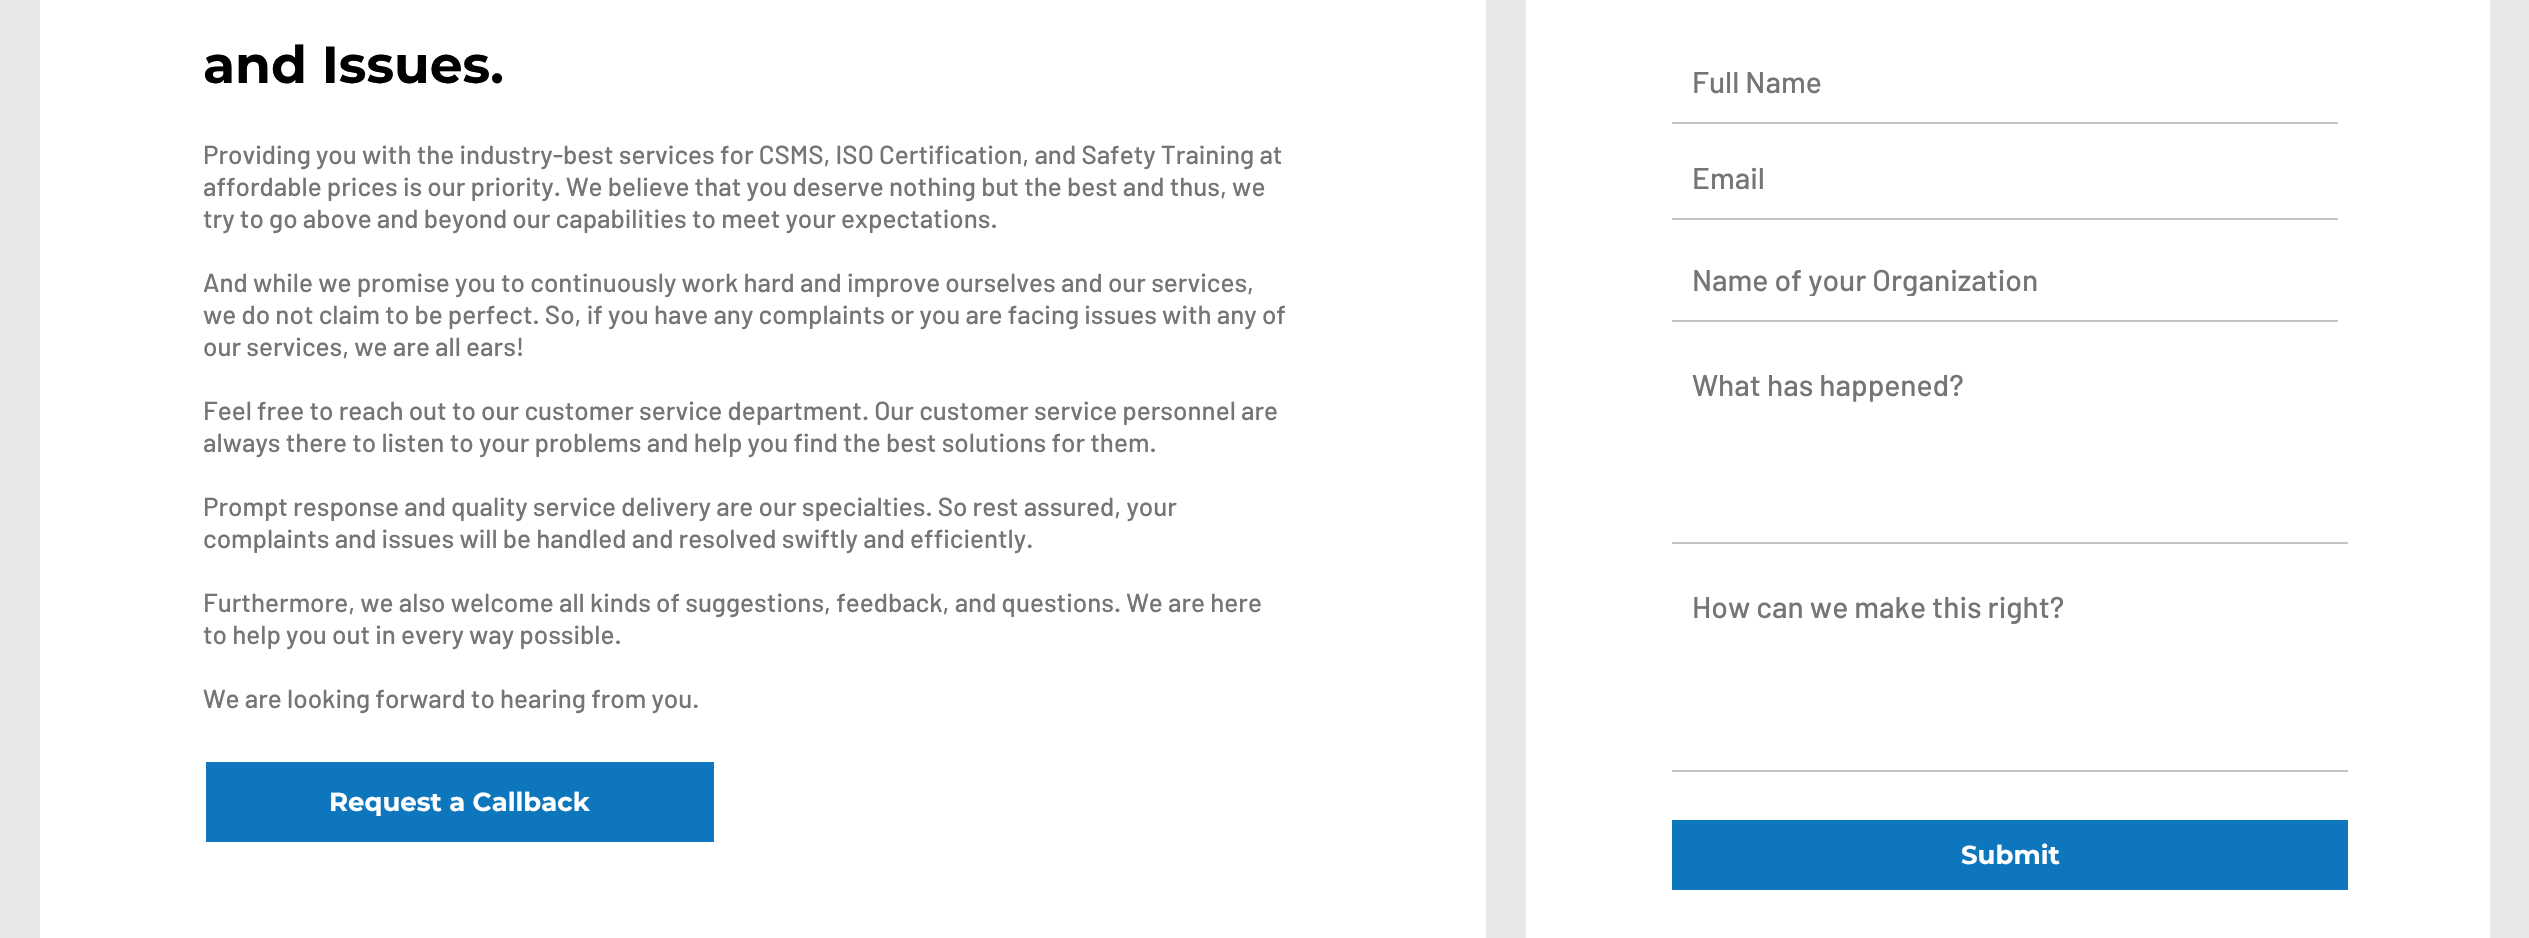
void draw(SkCanvas* canvas) {
  SkPaint paint;
  paint.setAntiAlias(true);
  auto face = [&](const char* family, int weight, float size, bool italic = false) {
    SkFontStyle style(weight, SkFontStyle::kNormal_Width,
      italic ? SkFontStyle::kItalic_Slant : SkFontStyle::kUpright_Slant);
    SkFont result(fontMgr->matchFamilyStyle(family, style), size);
    result.setSubpixel(true);
    return result;
  };
  canvas->clear(0xffe8e6e6);
  {
    const struct { float x, y, w, h; SkColor color; } items[] = {
      {40, 0, 1446, 938, 0xffffffff},
      {206, 762, 508, 80, 0xff0e76bc},
      {1526, 0, 964, 938, 0xffffffff},
      {1672, 122, 666, 2, 0xffc3c4ca},
      {1672, 218, 666, 2, 0xffc3c4ca},
      {1672, 320, 666, 2, 0xffc3c4ca},
      {1672, 542, 676, 2, 0xffc3c4ca},
      {1672, 770, 676, 2, 0xffc3c4ca},
      {1672, 820, 676, 70, 0xff0e76bc},
    };
    for (auto [x, y, w, h, color] : items) {
      paint.setColor(color);
      canvas->drawRect(SkRect::MakeXYWH(x, y, w, h), paint);
    }
  }
  auto f0 = face("Montserrat", 700, 52);
  paint.setColor(0xff000000);
  canvas->drawString("and Issues.", 203, 83, f0, paint);
  auto f1 = face("Barlow", 500, 26);
  paint.setColor(0xff757575);
  {
    const struct { const char* s; float x, y; } items[] = {
      {"Providing you with the industry-best services for CSMS, ISO Certification, and Safety Training at", 203, 164},
      {"affordable prices is our priority. We believe that you deserve nothing but the best and thus, we", 203, 196},
      {"try to go above and beyond our capabilities to meet your expectations.", 203, 228},
      {"And while we promise you to continuously work hard and improve ourselves and our services,", 203, 292},
      {"we do not claim to be perfect. So, if you have any complaints or you are facing issues with any of", 203, 324},
      {"our services, we are all ears!", 203, 356},
      {"Feel free to reach out to our customer service department. Our customer service personnel are", 203, 420},
      {"always there to listen to your problems and help you find the best solutions for them.", 203, 452},
      {"Prompt response and quality service delivery are our specialties. So rest assured, your", 203, 516},
      {"complaints and issues will be handled and resolved swiftly and efficiently.", 203, 548},
      {"Furthermore, we also welcome all kinds of suggestions, feedback, and questions. We are here", 203, 612},
      {"to help you out in every way possible.", 203, 644},
      {"We are looking forward to hearing from you.", 203, 708},
    };
    for (auto [s, x, y] : items) {
      canvas->drawString(s, x, y, f1, paint);
    }
  }
  auto f2 = face("Montserrat", 700, 26);
  paint.setColor(0xffffffff);
  canvas->drawString("Request a Callback", 329, 811, f2, paint);
  auto f3 = face("Barlow", 500, 30);
  paint.setColor(0xff757575);
  canvas->drawString("Full Name", 1692, 93, f3, paint);
  canvas->drawString("Email", 1692, 189, f3, paint);
  canvas->save();
  canvas->clipRect(SkRect::MakeXYWH(1692, 260, 640, 36));
  canvas->drawString("Name of your Organization", 1692, 291, f3, paint);
  canvas->restore();
  canvas->drawString("What has happened?", 1692, 396, f3, paint);
  canvas->drawString("How can we make this right?", 1692, 618, f3, paint);
  paint.setColor(0xffffffff);
  canvas->drawString("Submit", 1961, 864, f2, paint);
}
